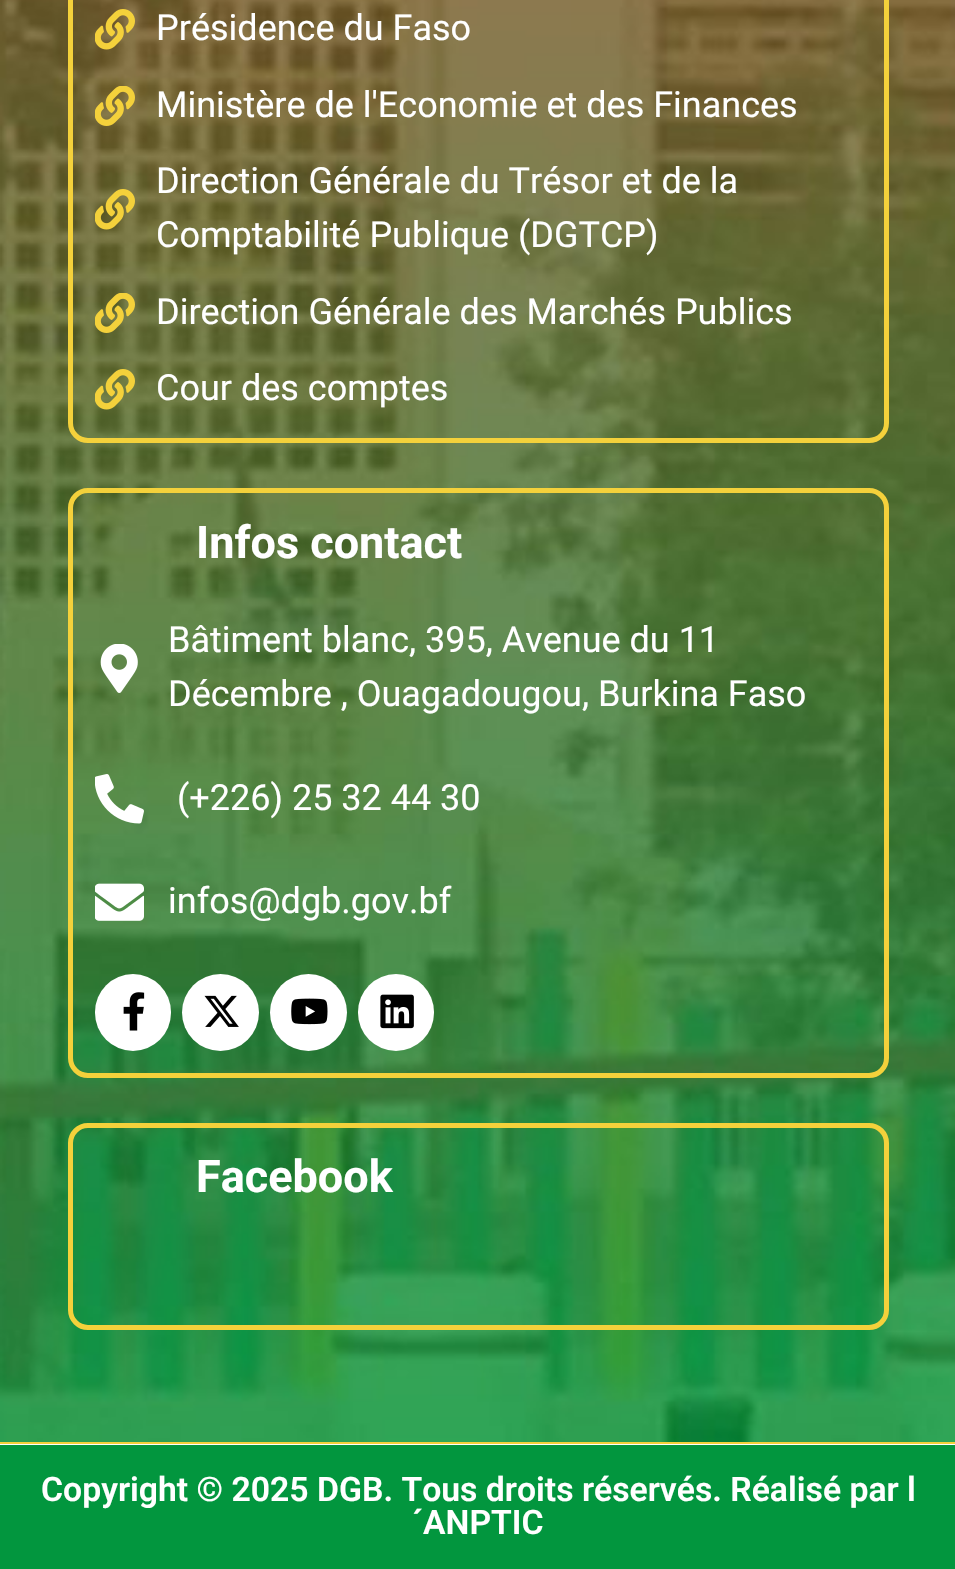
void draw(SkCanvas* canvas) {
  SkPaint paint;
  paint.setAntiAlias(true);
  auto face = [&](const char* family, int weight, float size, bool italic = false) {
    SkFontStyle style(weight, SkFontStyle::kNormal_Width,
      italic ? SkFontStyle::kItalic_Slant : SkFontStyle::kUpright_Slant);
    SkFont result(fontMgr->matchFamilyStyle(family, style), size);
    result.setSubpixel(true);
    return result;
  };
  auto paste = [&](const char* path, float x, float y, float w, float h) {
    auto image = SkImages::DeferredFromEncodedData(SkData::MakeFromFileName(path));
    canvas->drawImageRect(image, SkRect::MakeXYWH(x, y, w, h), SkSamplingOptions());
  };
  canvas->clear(0xffffffff);
  paste("img/1.png", 0, 0, 955, 1442);
  paint.setStroke(true);
  paint.setStrokeWidth(5);
  paint.setColor(0xfff4d13b);
  canvas->drawRoundRect(SkRect::MakeXYWH(70.5f, -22.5f, 816, 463), 17.5f, 17.5f, paint);
  paste("img/2.png", 95, 9, 40, 41);
  paste("img/3.png", 95, 86, 40, 40);
  paste("img/4.png", 95, 189, 40, 41);
  paste("img/5.png", 95, 293, 40, 40);
  paste("img/6.png", 95, 369, 40, 41);
  canvas->drawRoundRect(SkRect::MakeXYWH(70.5f, 490.5f, 816, 585), 17.5f, 17.5f, paint);
  paste("img/7.png", 100, 644, 38, 49);
  paste("img/8.png", 95, 774, 49, 50);
  paste("img/9.png", 95, 883, 49, 38);
  paint.setStroke(false);
  paint.setColor(0xffffffff);
  canvas->drawRoundRect(SkRect::MakeXYWH(95, 974, 76, 77), 38, 38, paint);
  paste("img/10.png", 123, 992, 22, 39);
  canvas->drawCircle(220.5f, 1012.5f, 38.5f, paint);
  paste("img/11.png", 204, 995, 35, 32);
  canvas->drawCircle(308.5f, 1012.5f, 38.5f, paint);
  paste("img/12.png", 291, 998, 37, 27);
  canvas->drawRoundRect(SkRect::MakeXYWH(358, 974, 76, 77), 38, 38, paint);
  paste("img/13.png", 380, 994, 34, 35);
  paint.setStroke(true);
  paint.setColor(0xfff4d13b);
  canvas->drawRoundRect(SkRect::MakeXYWH(70.5f, 1125.5f, 816, 202), 17.5f, 17.5f, paint);
  paint.setStroke(false);
  paint.setColor(0xff02963e);
  canvas->drawRect(SkRect::MakeXYWH(0, 1445, 955, 124), paint);
  paint.setColor(0xfff4d13b);
  canvas->drawRect(SkRect::MakeXYWH(0, 1442, 955, 2), paint);
  auto f0 = face("Roboto", 400, 36);
  paint.setColor(0xffffffff);
  {
    const struct { const char* s; float x, y; } items[] = {
      {"Présidence du Faso", 156, 40},
      {"Ministère de l'Economie et des Finances", 156, 117},
      {"Direction Générale du Trésor et de la", 156, 193},
      {"Comptabilité Publique (DGTCP)", 156, 247},
      {"Direction Générale des Marchés Publics", 156, 324},
      {"Cour des comptes", 156, 400},
    };
    for (auto [s, x, y] : items) {
      canvas->drawString(s, x, y, f0, paint);
    }
  }
  auto f1 = face("Roboto", 700, 45);
  canvas->drawString("Infos contact", 196, 558, f1, paint);
  {
    const struct { const char* s; float x, y; } items[] = {
      {"Bâtiment blanc, 395, Avenue du 11", 168, 652},
      {"Décembre , Ouagadougou, Burkina Faso", 168, 706},
      {"(+226) 25 32 44 30", 177, 810},
      {"infos@dgb.gov.bf", 168, 913},
    };
    for (auto [s, x, y] : items) {
      canvas->drawString(s, x, y, f0, paint);
    }
  }
  canvas->drawString("Facebook", 196, 1192, f1, paint);
  auto f2 = face("Roboto", 600, 33.75f);
  canvas->drawString("Copyright © 2025 DGB. Tous droits réservés. Réalisé par l", 41, 1501, f2, paint);
  canvas->drawString("´ANPTIC", 412, 1534, f2, paint);
}
